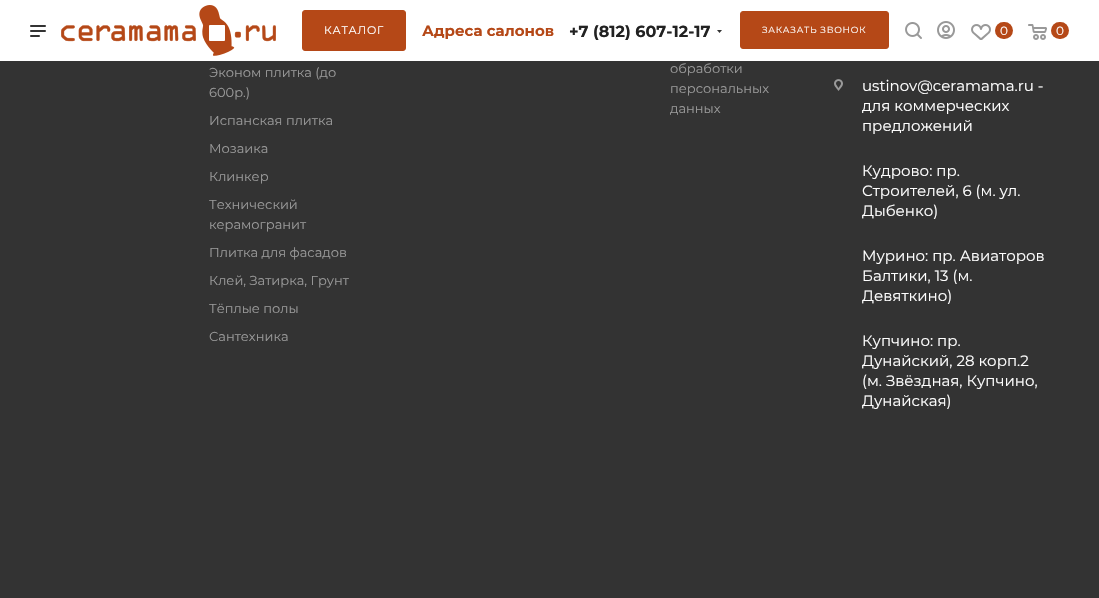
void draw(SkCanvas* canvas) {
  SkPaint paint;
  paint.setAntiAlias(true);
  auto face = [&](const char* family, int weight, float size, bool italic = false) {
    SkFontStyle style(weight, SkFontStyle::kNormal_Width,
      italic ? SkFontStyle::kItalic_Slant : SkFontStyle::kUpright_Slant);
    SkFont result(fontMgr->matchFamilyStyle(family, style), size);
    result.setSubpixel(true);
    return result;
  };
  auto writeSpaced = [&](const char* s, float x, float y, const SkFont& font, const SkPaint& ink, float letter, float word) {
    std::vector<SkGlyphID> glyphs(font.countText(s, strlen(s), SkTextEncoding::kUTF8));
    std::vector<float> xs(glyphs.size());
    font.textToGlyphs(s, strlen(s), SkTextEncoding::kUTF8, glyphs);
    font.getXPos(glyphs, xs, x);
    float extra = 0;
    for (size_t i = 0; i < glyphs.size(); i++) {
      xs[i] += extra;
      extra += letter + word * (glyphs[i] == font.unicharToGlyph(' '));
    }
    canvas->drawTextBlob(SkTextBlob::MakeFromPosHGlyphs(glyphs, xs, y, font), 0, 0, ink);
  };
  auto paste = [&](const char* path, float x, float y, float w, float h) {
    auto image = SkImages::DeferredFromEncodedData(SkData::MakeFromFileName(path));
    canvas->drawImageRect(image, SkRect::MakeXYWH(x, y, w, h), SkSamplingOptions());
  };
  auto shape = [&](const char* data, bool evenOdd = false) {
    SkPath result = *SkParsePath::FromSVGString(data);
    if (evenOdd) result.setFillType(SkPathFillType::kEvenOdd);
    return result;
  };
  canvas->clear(0xff333333);
  paint.setColor(0xffffffff);
  canvas->drawRect(SkRect::MakeXYWH(0, 0, 1099, 61), paint);
  paste("img/1.png", 30, 25, 16, 12);
  paste("img/2.png", 61, 5, 215, 51);
  paint.setColor(0xffb54817);
  canvas->drawRoundRect(SkRect::MakeXYWH(302.5f, 10.5f, 103, 40), 2.5f, 2.5f, paint);
  paint.setStroke(true);
  paint.setStrokeWidth(1);
  canvas->drawRoundRect(SkRect::MakeXYWH(302.5f, 10.5f, 103, 40), 2.5f, 2.5f, paint);
  paint.setStroke(false);
  paint.setColor(0xff333333);
  canvas->drawPath(shape("M717 30H722L719.5 33Z", true), paint);
  paint.setColor(0xffb54817);
  canvas->drawRoundRect(SkRect::MakeXYWH(740.5f, 11.5f, 148, 37), 2.5f, 2.5f, paint);
  paint.setStroke(true);
  canvas->drawRoundRect(SkRect::MakeXYWH(740.5f, 11.5f, 148, 37), 2.5f, 2.5f, paint);
  paste("img/3.png", 905, 22, 17, 17);
  paste("img/4.png", 937, 21, 18, 18);
  paste("img/5.png", 971, 24, 20, 16);
  paint.setStroke(false);
  canvas->drawRoundRect(SkRect::MakeXYWH(995, 22, 18, 17), 8.5f, 8.5f, paint);
  paste("img/6.png", 1028, 24, 19, 16);
  canvas->drawRoundRect(SkRect::MakeXYWH(1051, 22, 18, 17), 8.5f, 8.5f, paint);
  paste("img/7.png", 834, 79, 9, 12);
  auto f0 = face("Montserrat", 400, 11);
  paint.setColor(0xffffffff);
  writeSpaced("КАТАЛОГ", 324, 34, f0, paint, 0.75f, 0);
  auto f1 = face("Montserrat", 700, 15);
  paint.setColor(0xffb54817);
  canvas->drawString("Адреса салонов", 422, 36, f1, paint);
  auto f2 = face("Montserrat", 700, 16);
  paint.setColor(0xff222222);
  canvas->drawString("+7 (812) 607-12-17", 569, 37, f2, paint);
  auto f3 = face("Montserrat", 400, 9);
  paint.setColor(0xffffffff);
  writeSpaced("ЗАКАЗАТЬ ЗВОНОК", 762, 33, f3, paint, 0.75f, 0);
  auto f4 = face("Montserrat", 400, 12);
  canvas->drawString("0", 1000, 35, f4, paint);
  canvas->drawString("0", 1056, 35, f4, paint);
  auto f5 = face("Montserrat", 400, 13);
  paint.setColor(0xff999999);
  {
    const struct { const char* s; float x, y; } items[] = {
      {"Эконом плитка (до", 209, 77},
      {"600р.)", 209, 97},
      {"Испанская плитка", 209, 125},
      {"Мозаика", 209, 153},
      {"Клинкер", 209, 181},
      {"Технический", 209, 209},
      {"керамогранит", 209, 229},
      {"Плитка для фасадов", 209, 257},
      {"Клей, Затирка, Грунт", 209, 285},
      {"Тёплые полы", 209, 313},
      {"Сантехника", 209, 341},
      {"обработки", 670, 73},
      {"персональных", 670, 93},
      {"данных", 670, 113},
    };
    for (auto [s, x, y] : items) {
      canvas->drawString(s, x, y, f5, paint);
    }
  }
  auto f6 = face("Montserrat", 400, 15);
  paint.setColor(0xffffffff);
  {
    const struct { const char* s; float x, y; } items[] = {
      {"ustinov@ceramama.ru -", 862, 91},
      {"для коммерческих", 862, 111},
      {"предложений", 862, 131},
      {"Кудрово: пр.", 862, 176},
      {"Строителей, 6 (м. ул.", 862, 196},
      {"Дыбенко)", 862, 216},
      {"Мурино: пр. Авиаторов", 862, 261},
      {"Балтики, 13 (м.", 862, 281},
      {"Девяткино)", 862, 301},
      {"Купчино: пр.", 862, 346},
      {"Дунайский, 28 корп.2", 862, 366},
      {"(м. Звёздная, Купчино,", 862, 386},
      {"Дунайская)", 862, 406},
    };
    for (auto [s, x, y] : items) {
      canvas->drawString(s, x, y, f6, paint);
    }
  }
}
